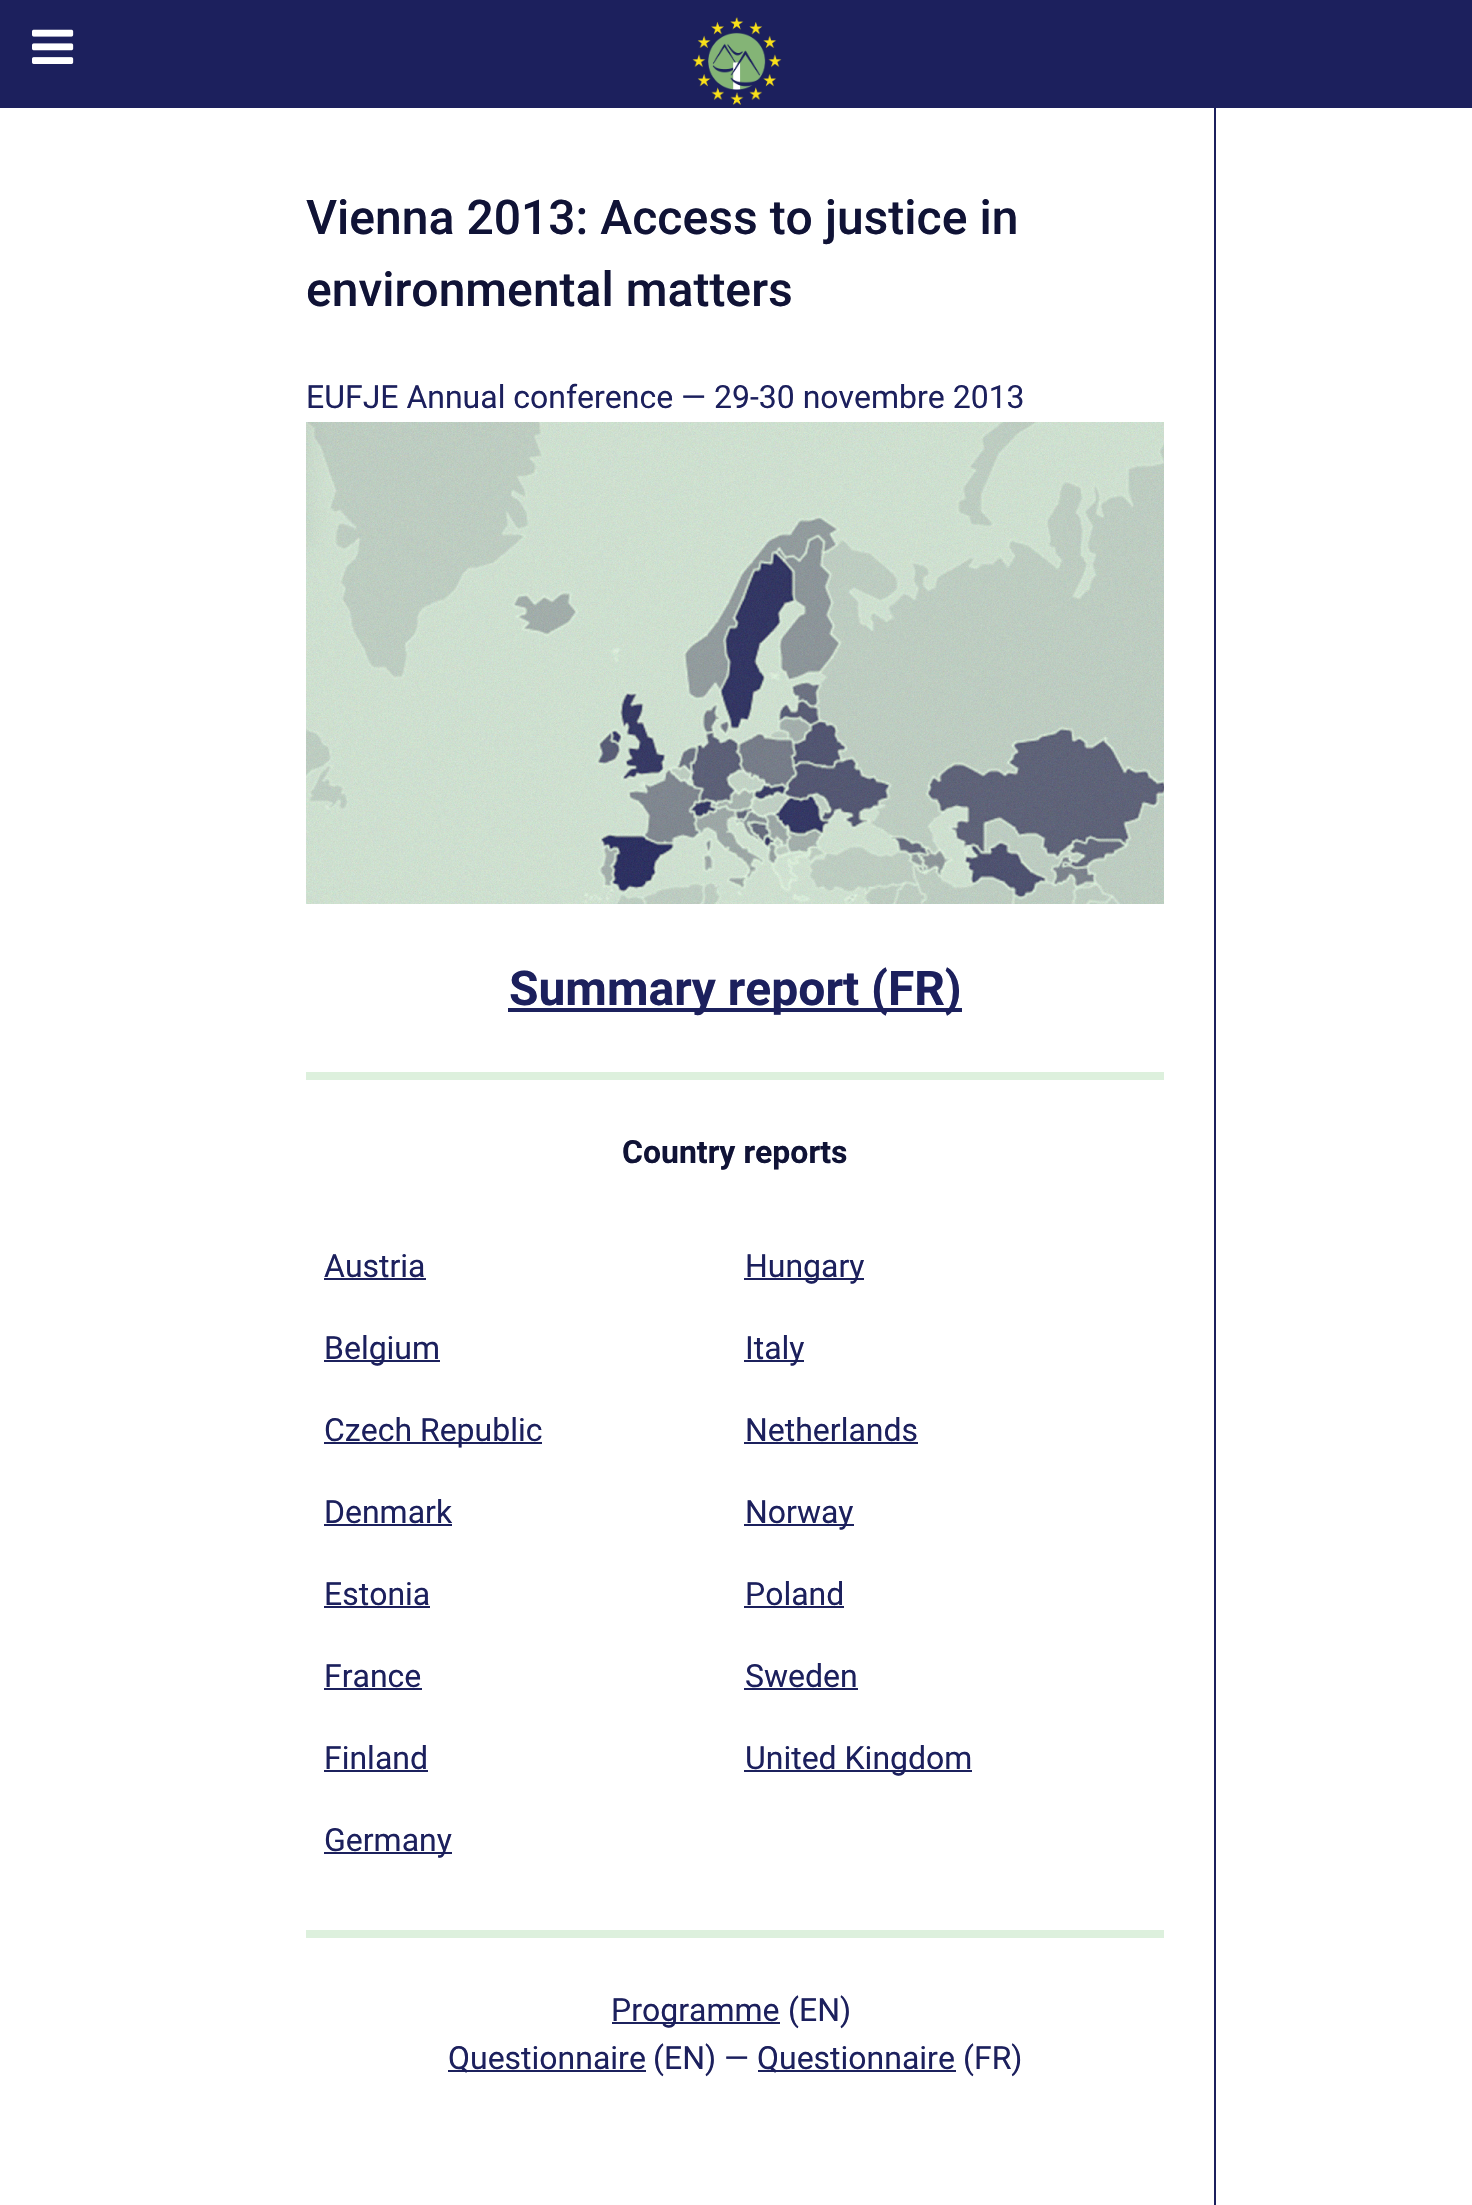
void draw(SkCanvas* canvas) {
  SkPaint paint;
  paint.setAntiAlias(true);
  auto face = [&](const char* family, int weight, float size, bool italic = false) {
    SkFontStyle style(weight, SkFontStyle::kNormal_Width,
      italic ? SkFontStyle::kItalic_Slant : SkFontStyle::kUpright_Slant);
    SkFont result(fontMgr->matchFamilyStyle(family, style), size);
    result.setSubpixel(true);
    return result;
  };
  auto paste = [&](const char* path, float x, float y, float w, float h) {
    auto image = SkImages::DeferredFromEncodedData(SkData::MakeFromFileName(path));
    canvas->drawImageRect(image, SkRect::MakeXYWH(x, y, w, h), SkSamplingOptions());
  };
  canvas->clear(0xffffffff);
  paint.setColor(0xff1c205d);
  canvas->drawRect(SkRect::MakeXYWH(0, 0, 1472, 108), paint);
  paste("img/1.png", 692, 17, 90, 88);
  paste("img/2.png", 32, 29, 42, 35);
  canvas->drawRect(SkRect::MakeXYWH(1214, 108, 2, 2097), paint);
  paste("img/3.png", 306, 422, 858, 482);
  {
    const struct { float x, y, w, h; SkColor color; } items[] = {
      {508, 1008, 454, 4, 0xff1c215d},
      {306, 1072, 858, 8, 0xffddf0dd},
      {324, 1278, 102, 2, 0xff1c215d},
      {744, 1278, 120, 2, 0xff1c215d},
      {324, 1360, 116, 2, 0xff1c215d},
      {744, 1360, 60, 2, 0xff1c215d},
      {324, 1442, 218, 2, 0xff1c215d},
      {744, 1442, 174, 2, 0xff1c215d},
      {324, 1524, 128, 2, 0xff1c215d},
      {744, 1524, 110, 2, 0xff1c215d},
      {324, 1606, 106, 2, 0xff1c215d},
      {744, 1606, 100, 2, 0xff1c215d},
      {324, 1688, 98, 2, 0xff1c215d},
      {744, 1688, 114, 2, 0xff1c215d},
      {324, 1770, 104, 2, 0xff1c215d},
      {744, 1770, 228, 2, 0xff1c215d},
      {324, 1852, 128, 2, 0xff1c215d},
      {306, 1930, 858, 8, 0xffddf0dd},
      {612, 2022, 168, 2, 0xff1c215d},
      {448, 2070, 198, 2, 0xff1c215d},
      {758, 2070, 198, 2, 0xff1c215d},
    };
    for (auto [x, y, w, h, color] : items) {
      paint.setColor(color);
      canvas->drawRect(SkRect::MakeXYWH(x, y, w, h), paint);
    }
  }
  auto f0 = face("Roboto", 500, 48);
  paint.setColor(0xff101336);
  canvas->drawString("Vienna 2013: Access to justice in", 306, 234, f0, paint);
  canvas->drawString("environmental matters", 306, 306, f0, paint);
  auto f1 = face("Roboto", 400, 32);
  paint.setColor(0xff1c205d);
  canvas->drawString("EUFJE Annual conference — 29-30 novembre 2013", 306, 408, f1, paint);
  auto f2 = face("Roboto", 700, 48);
  canvas->drawString("Summary report (FR)", 509, 1005, f2, paint);
  auto f3 = face("Roboto", 700, 32);
  paint.setColor(0xff101336);
  canvas->drawString("Country reports", 622, 1163, f3, paint);
  paint.setColor(0xff1c205d);
  {
    const struct { const char* s; float x, y; } items[] = {
      {"Austria", 324, 1277},
      {"Hungary", 745, 1277},
      {"Belgium", 324, 1359},
      {"Italy", 745, 1359},
      {"Czech Republic", 324, 1441},
      {"Netherlands", 745, 1441},
      {"Denmark", 324, 1523},
      {"Norway", 745, 1523},
      {"Estonia", 324, 1605},
      {"Poland", 745, 1605},
      {"France", 324, 1687},
      {"Sweden", 745, 1687},
      {"Finland", 324, 1769},
      {"United Kingdom", 745, 1769},
      {"Germany", 324, 1851},
      {"Programme", 611, 2021},
      {"(EN)", 788, 2021},
      {"Questionnaire", 448, 2069},
      {"(EN) —", 653, 2069},
      {"Questionnaire", 757, 2069},
      {"(FR)", 963, 2069},
    };
    for (auto [s, x, y] : items) {
      canvas->drawString(s, x, y, f1, paint);
    }
  }
}
